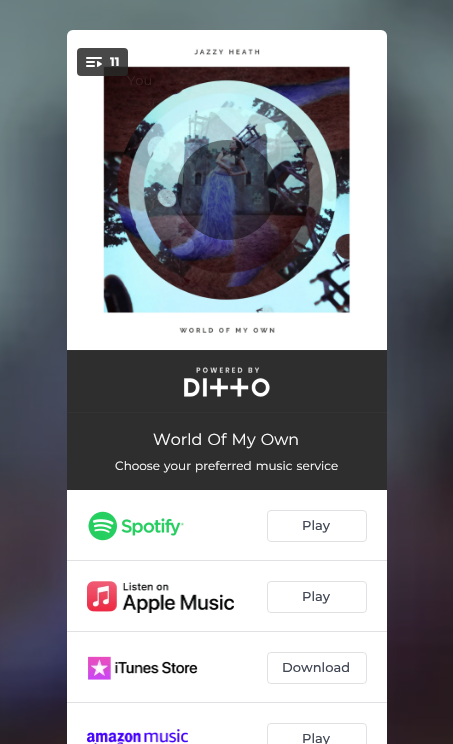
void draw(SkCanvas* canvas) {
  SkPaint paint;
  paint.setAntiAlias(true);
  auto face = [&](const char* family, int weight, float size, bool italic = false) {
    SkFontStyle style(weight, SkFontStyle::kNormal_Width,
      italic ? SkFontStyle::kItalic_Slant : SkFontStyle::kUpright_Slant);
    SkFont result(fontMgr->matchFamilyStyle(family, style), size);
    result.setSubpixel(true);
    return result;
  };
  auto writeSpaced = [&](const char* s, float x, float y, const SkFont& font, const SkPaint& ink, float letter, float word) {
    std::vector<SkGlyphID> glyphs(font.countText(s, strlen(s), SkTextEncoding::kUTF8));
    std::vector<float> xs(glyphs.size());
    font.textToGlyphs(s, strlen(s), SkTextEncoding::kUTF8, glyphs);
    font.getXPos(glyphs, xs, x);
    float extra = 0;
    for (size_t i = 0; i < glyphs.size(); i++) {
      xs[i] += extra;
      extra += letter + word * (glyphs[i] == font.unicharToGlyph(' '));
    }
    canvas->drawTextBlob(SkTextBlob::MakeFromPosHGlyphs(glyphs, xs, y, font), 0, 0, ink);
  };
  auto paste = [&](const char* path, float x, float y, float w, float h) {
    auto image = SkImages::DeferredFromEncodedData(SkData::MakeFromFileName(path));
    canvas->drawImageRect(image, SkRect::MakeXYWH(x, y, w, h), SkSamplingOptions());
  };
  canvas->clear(0xffffffff);
  paste("img/1.png", 0, 0, 453, 744);
  paste("img/2.png", 67, 30, 320, 320);
  paint.setColor(0x73000000);
  canvas->drawCircle(227, 190, 50, paint);
  {
    const struct { float x, y, w, h; SkColor color; } items[] = {
      {67, 351, 320, 61, 0xff2e2e2e},
      {67, 350, 320, 1, 0xff333333},
      {67, 412, 320, 1, 0xff333333},
    };
    for (auto [x, y, w, h, color] : items) {
      paint.setColor(color);
      canvas->drawRect(SkRect::MakeXYWH(x, y, w, h), paint);
    }
  }
  paste("img/4.png", 184, 367, 86, 30);
  {
    const struct { float x, y, w, h; SkColor color; } items[] = {
      {67, 413, 320, 77, 0xff2e2e2e},
      {67, 490, 320, 254, 0xffffffff},
      {67, 560, 320, 1, 0xffe1e1e4},
    };
    for (auto [x, y, w, h, color] : items) {
      paint.setColor(color);
      canvas->drawRect(SkRect::MakeXYWH(x, y, w, h), paint);
    }
  }
  paste("img/5.png", 88, 511, 96, 30);
  paint.setStroke(true);
  paint.setStrokeWidth(1);
  canvas->drawRoundRect(SkRect::MakeXYWH(267.5f, 510.5f, 99, 31), 3.5f, 3.5f, paint);
  paint.setStroke(false);
  canvas->drawRect(SkRect::MakeXYWH(67, 631, 320, 1), paint);
  paste("img/6.png", 87, 581, 147, 32);
  paint.setStroke(true);
  canvas->drawRoundRect(SkRect::MakeXYWH(267.5f, 581.5f, 99, 31), 3.5f, 3.5f, paint);
  paint.setStroke(false);
  canvas->drawRect(SkRect::MakeXYWH(67, 702, 320, 1), paint);
  paste("img/7.png", 88, 656, 110, 24);
  paint.setStroke(true);
  canvas->drawRoundRect(SkRect::MakeXYWH(267.5f, 652.5f, 99, 31), 3.5f, 3.5f, paint);
  paste("img/8.png", 87, 729, 101, 15);
  canvas->drawRoundRect(SkRect::MakeXYWH(267.5f, 723.5f, 99, 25), 3.5f, 3.5f, paint);
  auto f0 = face("Montserrat", 400, 13);
  paint.setStroke(false);
  paint.setColor(0xff3a2324);
  writeSpaced("You", 127, 85, f0, paint, 0, 1);
  paint.setColor(0xd9282828);
  canvas->drawRoundRect(SkRect::MakeXYWH(77, 48, 51, 28), 4, 4, paint);
  auto f1 = face("Montserrat", 700, 12);
  paint.setColor(0xffffffff);
  canvas->drawString("11", 110, 66, f1, paint);
  paste("img/3.png", 86, 57, 16, 10);
  auto f2 = face("Montserrat", 400, 16);
  writeSpaced("World Of My Own", 153, 445, f2, paint, 0, 1);
  auto f3 = face("Montserrat", 400, 12);
  writeSpaced("Choose your preferred music service", 115, 470, f3, paint, 0, 1);
  auto f4 = face("Montserrat", 500, 13);
  paint.setColor(0xff414754);
  {
    const struct { const char* s; float x, y; } items[] = {
      {"Play", 302, 530},
      {"Play", 302, 601},
      {"Download", 282, 672},
      {"Play", 302, 743},
    };
    for (auto [s, x, y] : items) {
      canvas->drawString(s, x, y, f4, paint);
    }
  }
}
